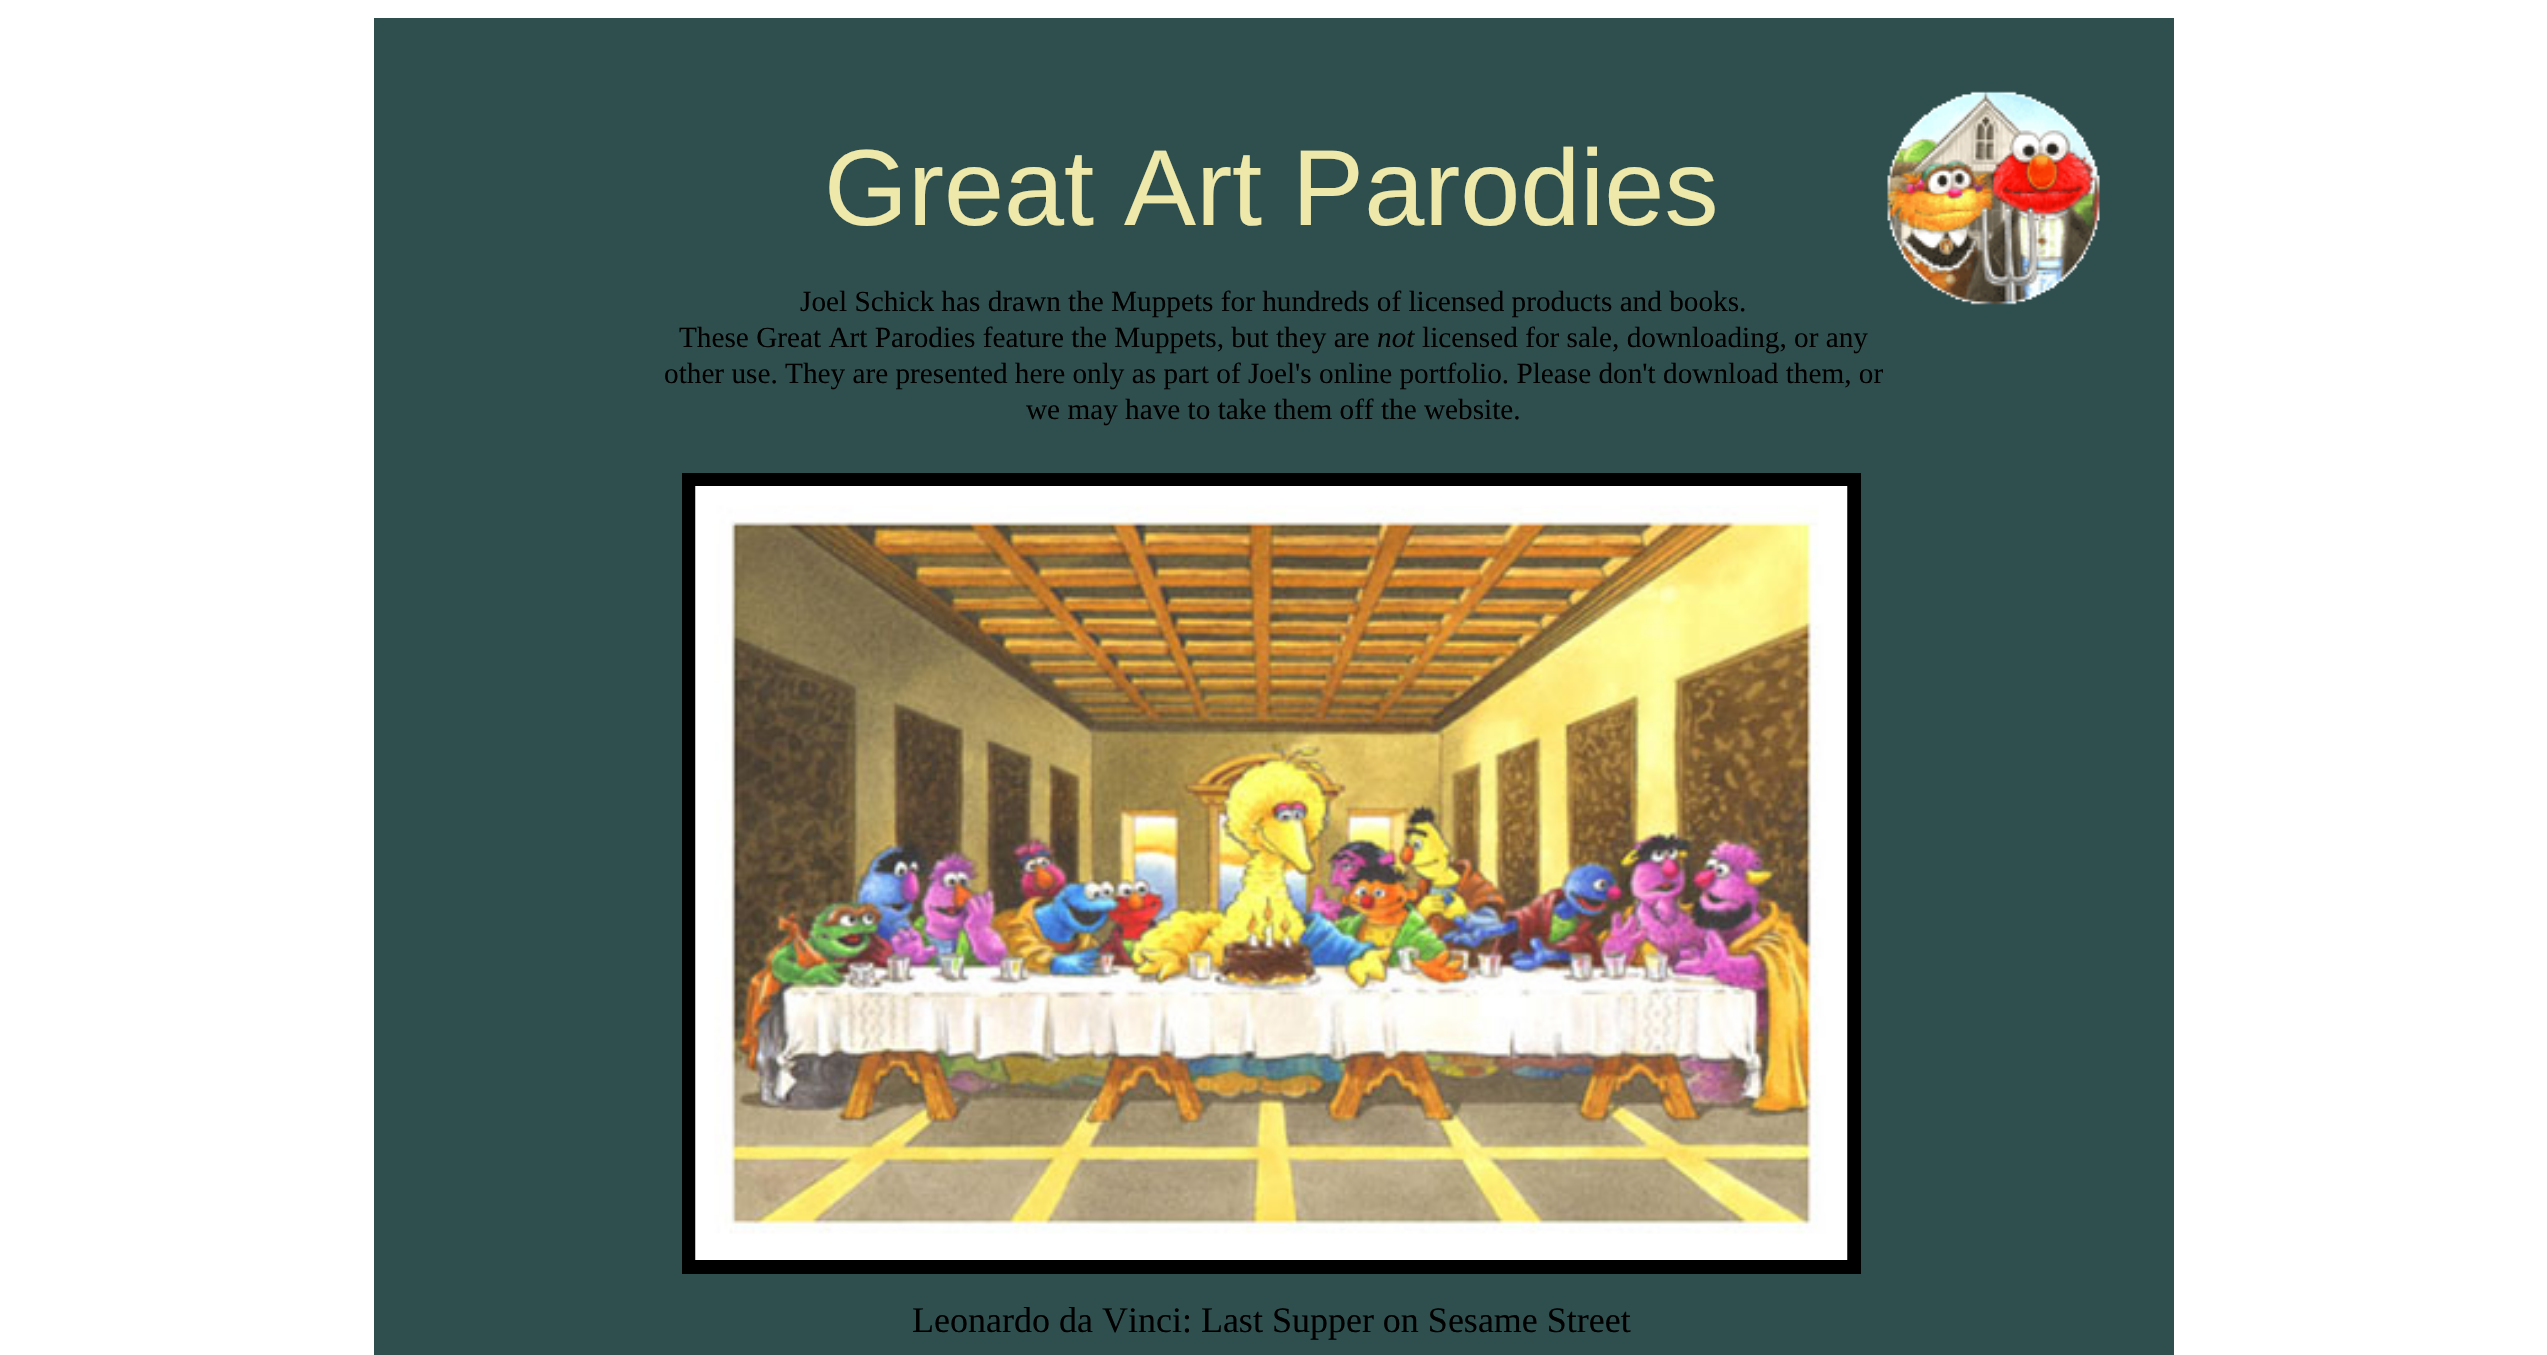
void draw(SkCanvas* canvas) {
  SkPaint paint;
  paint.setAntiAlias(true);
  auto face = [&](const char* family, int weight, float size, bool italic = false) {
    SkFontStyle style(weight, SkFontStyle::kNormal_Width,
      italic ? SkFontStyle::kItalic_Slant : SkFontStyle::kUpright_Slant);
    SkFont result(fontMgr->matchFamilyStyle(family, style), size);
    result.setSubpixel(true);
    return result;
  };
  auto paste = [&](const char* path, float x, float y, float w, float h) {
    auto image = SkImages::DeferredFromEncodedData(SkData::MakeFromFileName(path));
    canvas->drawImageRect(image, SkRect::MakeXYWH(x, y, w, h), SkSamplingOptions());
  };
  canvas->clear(0xffffffff);
  paint.setColor(0xff2f4f4f);
  canvas->drawRect(SkRect::MakeXYWH(374, 18, 1800, 1337), paint);
  paste("img/1.png", 1887, 91, 213, 214);
  paint.setStroke(true);
  paint.setStrokeWidth(14);
  paint.setColor(0xff000000);
  canvas->drawRect(SkRect::MakeXYWH(689, 480, 1165, 787), paint);
  paste("img/2.png", 695, 486, 1153, 774);
  auto f0 = face("Liberation Sans", 400, 108);
  paint.setStroke(false);
  paint.setColor(0xffeee8aa);
  canvas->drawString("Great Art Parodies", 824, 225, f0, paint);
  auto f1 = face("Liberation Serif", 400, 29.25f);
  paint.setColor(0xff000000);
  canvas->drawString("Joel Schick has drawn the Muppets for hundreds of licensed products and books.", 800, 311, f1, paint);
  canvas->drawString("These Great Art Parodies feature the Muppets, but they are", 679, 347, f1, paint);
  auto f2 = face("Liberation Serif", 400, 29.25f, true);
  canvas->drawString("not", 1377, 347, f2, paint);
  {
    const struct { const char* s; float x, y; } items[] = {
      {"licensed for sale, downloading, or any", 1422, 347},
      {"other use. They are presented here only as part of Joel's online portfolio. Please don't download them, or", 664, 383},
      {"we may have to take them off the website.", 1026, 419},
    };
    for (auto [s, x, y] : items) {
      canvas->drawString(s, x, y, f1, paint);
    }
  }
  auto f3 = face("Liberation Serif", 400, 36);
  canvas->drawString("Leonardo da Vinci: Last Supper on Sesame Street", 912, 1332, f3, paint);
}
